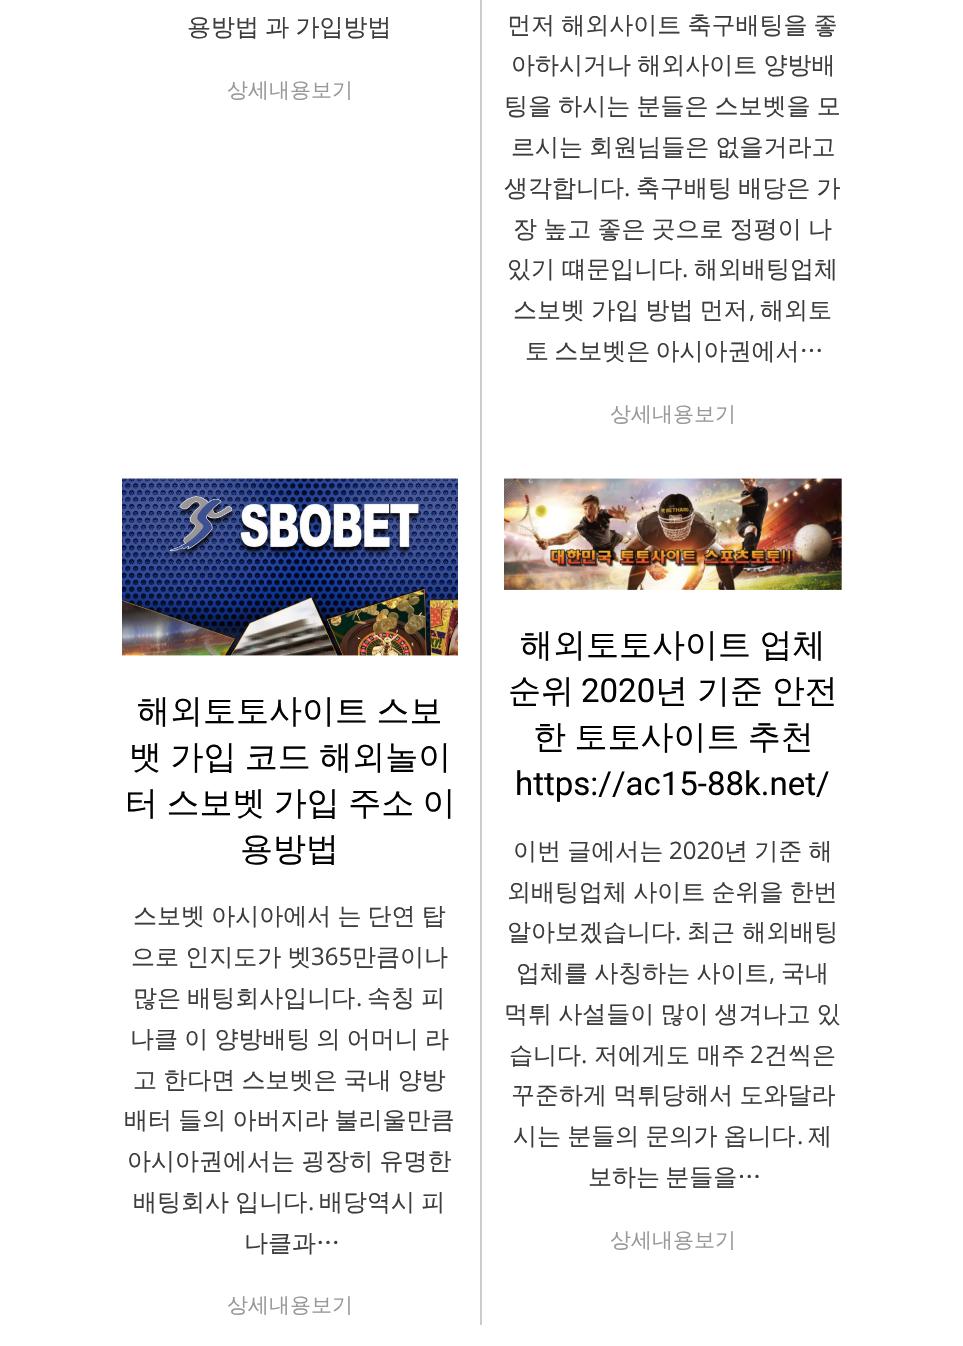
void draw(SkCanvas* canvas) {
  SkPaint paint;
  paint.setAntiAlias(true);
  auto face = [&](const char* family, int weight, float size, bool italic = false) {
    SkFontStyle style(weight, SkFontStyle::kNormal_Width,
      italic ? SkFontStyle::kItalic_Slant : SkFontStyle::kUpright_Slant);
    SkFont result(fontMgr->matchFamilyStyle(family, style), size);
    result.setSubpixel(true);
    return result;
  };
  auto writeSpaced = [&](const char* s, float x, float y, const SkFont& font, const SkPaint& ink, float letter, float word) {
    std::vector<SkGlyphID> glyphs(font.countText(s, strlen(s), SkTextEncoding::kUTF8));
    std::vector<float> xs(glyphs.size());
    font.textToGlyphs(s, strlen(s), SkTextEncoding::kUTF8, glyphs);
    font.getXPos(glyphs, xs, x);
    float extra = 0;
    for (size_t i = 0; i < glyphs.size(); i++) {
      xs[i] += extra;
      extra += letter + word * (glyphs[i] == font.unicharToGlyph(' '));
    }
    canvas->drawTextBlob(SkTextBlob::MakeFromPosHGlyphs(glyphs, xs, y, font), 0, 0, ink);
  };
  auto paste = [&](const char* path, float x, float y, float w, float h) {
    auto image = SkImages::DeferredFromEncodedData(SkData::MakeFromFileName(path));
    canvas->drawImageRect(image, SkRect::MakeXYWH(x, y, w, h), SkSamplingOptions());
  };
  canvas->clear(0xffffffff);
  paint.setColor(0xffcccccc);
  canvas->drawRect(SkRect::MakeXYWH(480, 0, 2, 1325), paint);
  paste("img/1.png", 122, 478, 336, 178);
  paste("img/2.png", 504, 478, 338, 112);
  auto f0 = face("WenQuanYi Zen Hei", 500, 24);
  paint.setColor(0xff3d3d3d);
  writeSpaced("용방법 과 가입방법", 187, 35, f0, paint, 0, -1);
  auto f1 = face("WenQuanYi Zen Hei", 500, 21);
  paint.setColor(0xff999999);
  canvas->drawString("상세내용보기", 227, 97, f1, paint);
  paint.setColor(0xff3d3d3d);
  {
    const struct { const char* s; float x, y; } items[] = {
      {"먼저 해외사이트 축구배팅을 좋", 507, 33},
      {"아하시거나 해외사이트 양방배", 511, 73},
      {"팅을 하시는 분들은 스보벳을 모", 504, 114},
      {"르시는 회원님들은 없을거라고", 511, 155},
    };
    for (auto [s, x, y] : items) {
      writeSpaced(s, x, y, f0, paint, 0, -1);
    }
  }
  canvas->drawString("생각합니다", 504, 196, f0, paint);
  auto f2 = face("Open Sans", 400, 24);
  canvas->drawString(".", 624, 196, f2, paint);
  writeSpaced("축구배팅 배당은 가", 636, 196, f0, paint, 0, -1);
  writeSpaced("장 높고 좋은 곳으로 정평이 나", 513, 237, f0, paint, 0, -1);
  canvas->drawString("있기 떄문입니다", 507, 277, f0, paint);
  canvas->drawString(".", 682, 277, f2, paint);
  canvas->drawString("해외배팅업체", 694, 277, f0, paint);
  writeSpaced("스보벳 가입 방법 먼저", 513, 318, f0, paint, 0, -1);
  canvas->drawString(",", 749, 318, f2, paint);
  canvas->drawString("해외토", 760, 318, f0, paint);
  writeSpaced("토 스보벳은 아시아권에서…", 525, 359, f0, paint, 0, -2);
  paint.setColor(0xff999999);
  canvas->drawString("상세내용보기", 610, 421, f1, paint);
  auto f3 = face("WenQuanYi Zen Hei", 500, 33);
  paint.setColor(0xff020202);
  {
    const struct { const char* s; float x, y; } items[] = {
      {"해외토토사이트 스보", 137, 722},
      {"뱃 가입 코드 해외놀이", 129, 768},
      {"터 스보벳 가입 주소 이", 125, 814},
    };
    for (auto [s, x, y] : items) {
      writeSpaced(s, x, y, f3, paint, 0, -1.5f);
    }
  }
  canvas->drawString("용방법", 240, 860, f3, paint);
  paint.setColor(0xff3d3d3d);
  writeSpaced("스보벳 아시아에서 는 단연 탑", 133, 924, f0, paint, 0, -1);
  writeSpaced("으로 인지도가 벳", 131, 965, f0, paint, 0, -1);
  canvas->drawString("365", 311, 965, f2, paint);
  canvas->drawString("만큼이나", 352, 965, f0, paint);
  writeSpaced("많은 배팅회사입니다", 133, 1006, f0, paint, 0, -1);
  canvas->drawString(".", 356, 1006, f2, paint);
  {
    const struct { const char* s; float x, y; } items[] = {
      {"속칭 피", 367, 1006},
      {"나클 이 양방배팅 의 어머니 라", 130, 1047},
      {"고 한다면 스보벳은 국내 양방", 133, 1088},
      {"배터 들의 아버지라 불리울만큼", 124, 1128},
      {"아시아권에서는 굉장히 유명한", 127, 1169},
      {"배팅회사 입니다", 133, 1210},
    };
    for (auto [s, x, y] : items) {
      writeSpaced(s, x, y, f0, paint, 0, -1);
    }
  }
  canvas->drawString(".", 308, 1210, f2, paint);
  writeSpaced("배당역시 피", 319, 1210, f0, paint, 0, -1);
  canvas->drawString("나클과…", 244, 1251, f0, paint);
  paint.setColor(0xff999999);
  canvas->drawString("상세내용보기", 227, 1312, f1, paint);
  paint.setColor(0xff020202);
  writeSpaced("해외토토사이트 업체", 520, 656, f3, paint, 0, -1.5f);
  canvas->drawString("순위", 508, 702, f3, paint);
  auto f4 = face("Roboto", 400, 33);
  canvas->drawString("2020", 581, 702, f4, paint);
  writeSpaced("년 기준 안전", 655, 702, f3, paint, 0, -1);
  writeSpaced("한 토토사이트 추천", 533, 748, f3, paint, 0, -1.5f);
  canvas->drawString("https://ac15-88k.net/", 515, 795, f4, paint);
  paint.setColor(0xff3d3d3d);
  writeSpaced("이번 글에서는", 513, 859, f0, paint, 0, -1);
  canvas->drawString("2020", 669, 859, f2, paint);
  writeSpaced("년 기준 해", 724, 859, f0, paint, 0, -1);
  writeSpaced("외배팅업체 사이트 순위을 한번", 507, 900, f0, paint, 0, -1);
  canvas->drawString("알아보겠습니다", 507, 940, f0, paint);
  canvas->drawString(".", 675, 940, f2, paint);
  canvas->drawString("최근 해외배팅", 687, 940, f0, paint);
  writeSpaced("업체를 사칭하는 사이트", 516, 981, f0, paint, 0, -1);
  canvas->drawString(",", 769, 981, f2, paint);
  canvas->drawString("국내", 781, 981, f0, paint);
  writeSpaced("먹튀 사설들이 많이 생겨나고 있", 504, 1022, f0, paint, 0, -1);
  canvas->drawString("습니다", 509, 1063, f0, paint);
  canvas->drawString(".", 581, 1063, f2, paint);
  canvas->drawString("저에게도 매주", 594, 1063, f0, paint);
  canvas->drawString("2", 750, 1063, f2, paint);
  canvas->drawString("건씩은", 764, 1063, f0, paint);
  writeSpaced("꾸준하게 먹튀당해서 도와달라", 511, 1103, f0, paint, 0, -1);
  writeSpaced("시는 분들의 문의가 옵니다", 513, 1144, f0, paint, 0, -1);
  canvas->drawString(".", 797, 1144, f2, paint);
  canvas->drawString("제", 808, 1144, f0, paint);
  writeSpaced("보하는 분들을…", 588, 1185, f0, paint, 0, -2);
  paint.setColor(0xff999999);
  canvas->drawString("상세내용보기", 610, 1247, f1, paint);
}
